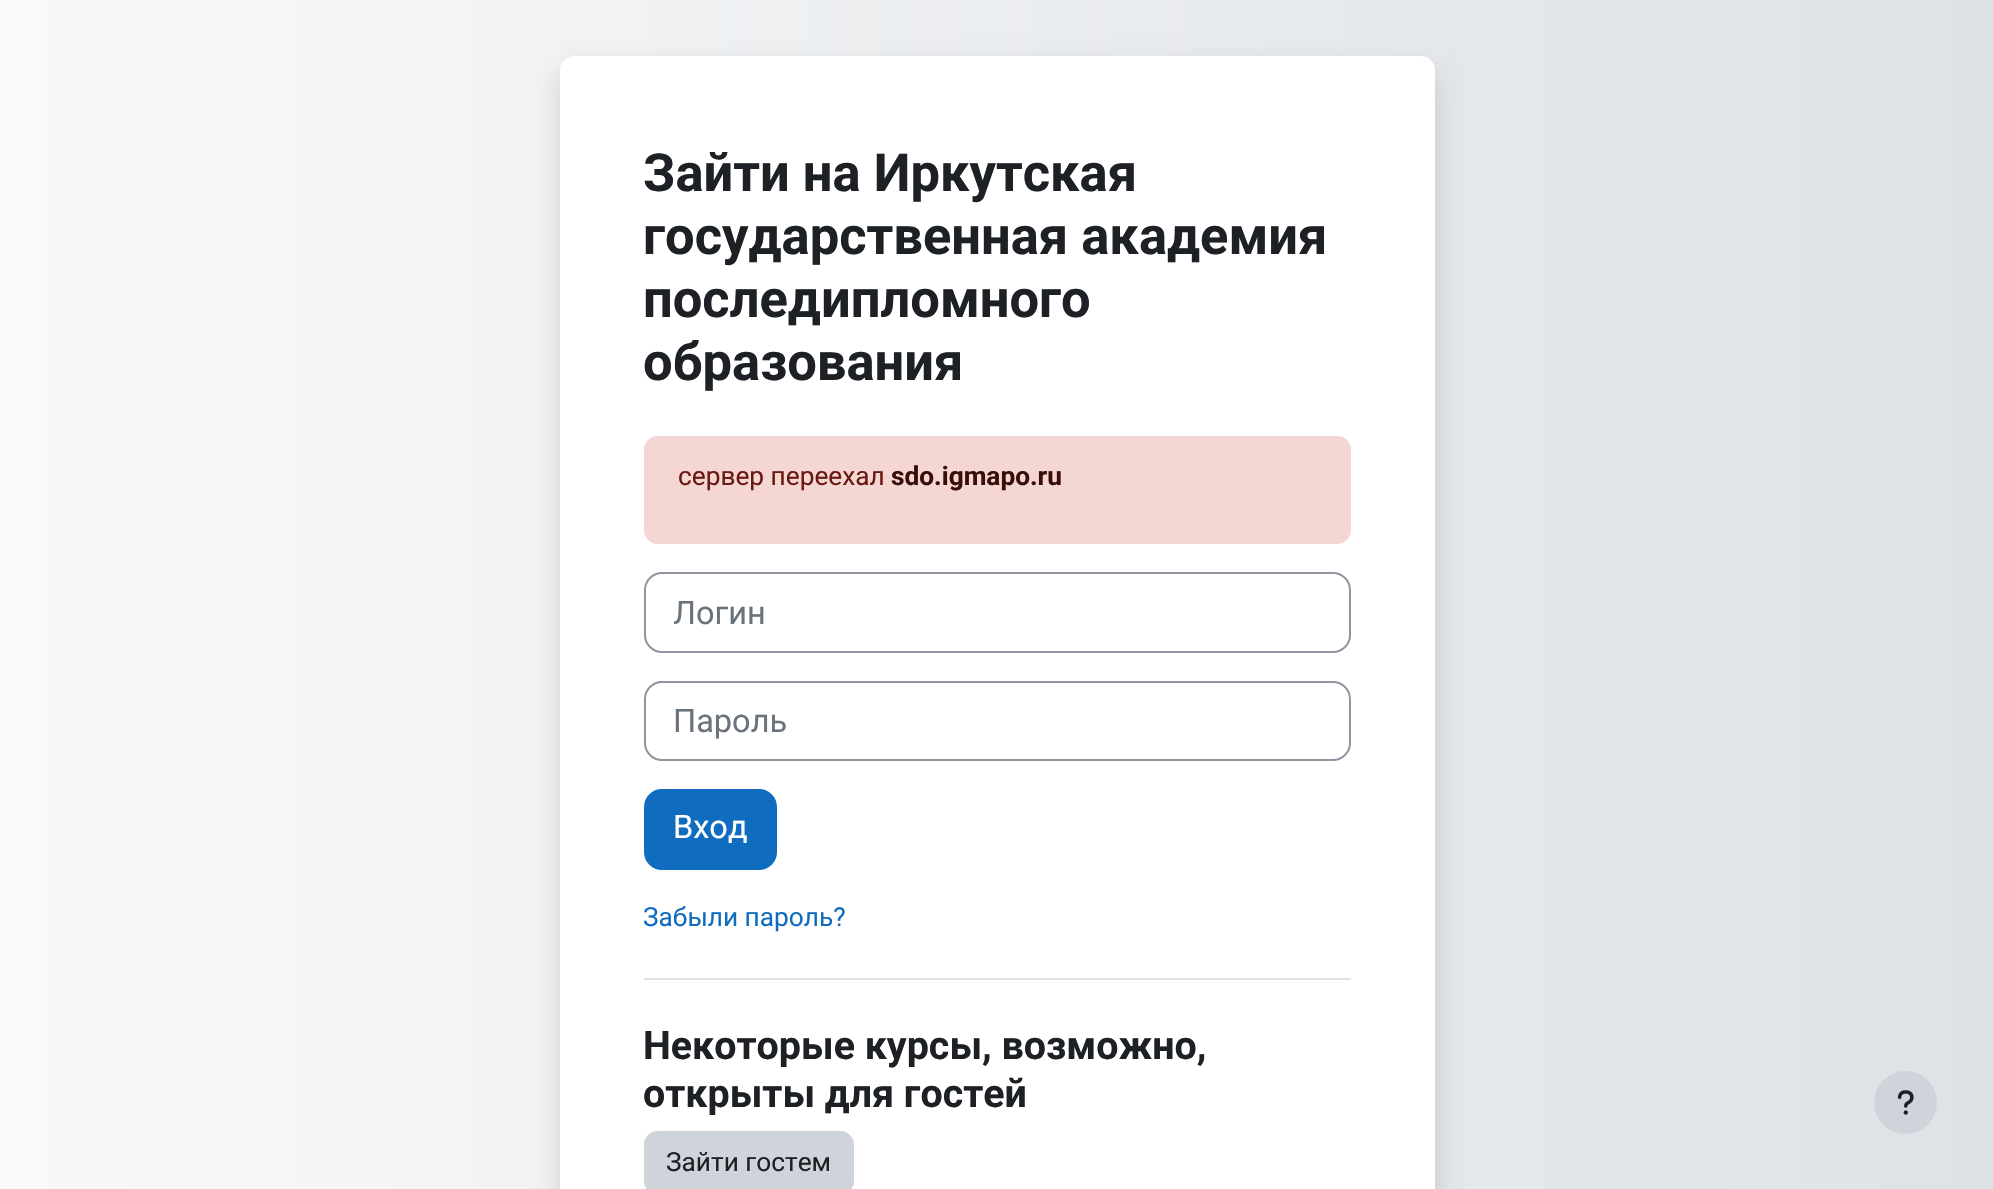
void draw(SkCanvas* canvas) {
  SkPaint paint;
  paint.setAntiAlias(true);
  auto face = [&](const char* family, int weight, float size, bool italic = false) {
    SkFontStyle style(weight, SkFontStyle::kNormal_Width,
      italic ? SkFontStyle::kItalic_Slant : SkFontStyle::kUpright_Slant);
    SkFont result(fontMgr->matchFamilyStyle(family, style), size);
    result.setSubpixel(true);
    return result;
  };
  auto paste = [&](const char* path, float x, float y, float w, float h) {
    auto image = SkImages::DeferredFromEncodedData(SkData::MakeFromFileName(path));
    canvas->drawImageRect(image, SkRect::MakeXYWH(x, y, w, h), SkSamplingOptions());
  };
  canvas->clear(0xffffffff);
  {
    const SkColor colors[] = {0xfff8f9fa, 0xffdee2e6};
    const float stops[] = {0, 1};
    const SkPoint ends[] = {{0, 744}, {1993, 744}};
    paint.setShader(SkGradientShader::MakeLinear(ends, colors, stops, 2, SkTileMode::kClamp));
    paint.setAlpha(255);
  }
  canvas->drawRect(SkRect::MakeXYWH(0, 0, 1993, 1189), paint);
  paint.setShader(nullptr);
  paint.setColor(0x26000000);
  paint.setMaskFilter(SkMaskFilter::MakeBlur(kNormal_SkBlurStyle, 14));
  canvas->drawRoundRect(SkRect::MakeXYWH(560, 70, 875, 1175), 14, 14, paint);
  paint.setMaskFilter(nullptr);
  paint.setColor(0xffffffff);
  canvas->drawRoundRect(SkRect::MakeXYWH(560, 56, 875, 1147), 14, 14, paint);
  paint.setColor(0xfff4d6d2);
  canvas->drawRoundRect(SkRect::MakeXYWH(644, 436, 707, 108), 14, 14, paint);
  paint.setStroke(true);
  paint.setStrokeWidth(2);
  paint.setColor(0xff8f959e);
  canvas->drawRoundRect(SkRect::MakeXYWH(645, 573, 705, 79), 17, 17, paint);
  canvas->drawRoundRect(SkRect::MakeXYWH(645, 682, 705, 78), 17, 17, paint);
  paint.setStroke(false);
  paint.setColor(0xff0f6cbf);
  canvas->drawRoundRect(SkRect::MakeXYWH(645, 790, 131, 79), 17, 17, paint);
  paint.setStroke(true);
  canvas->drawRoundRect(SkRect::MakeXYWH(645, 790, 131, 79), 17, 17, paint);
  paint.setStroke(false);
  paint.setColor(0xffdee2e6);
  canvas->drawRect(SkRect::MakeXYWH(644, 978, 707, 2), paint);
  paint.setColor(0xffced4da);
  canvas->drawRoundRect(SkRect::MakeXYWH(645, 1132, 208, 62), 13, 13, paint);
  paint.setStroke(true);
  canvas->drawRoundRect(SkRect::MakeXYWH(645, 1132, 208, 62), 13, 13, paint);
  paint.setStroke(false);
  canvas->drawCircle(1905.5f, 1102.5f, 31.5f, paint);
  paste("img/1.png", 1897, 1090, 17, 25);
  auto f0 = face("Roboto", 700, 52.5f);
  paint.setColor(0xff1d2125);
  {
    const struct { const char* s; float x, y; } items[] = {
      {"Зайти на Иркутская", 643, 191},
      {"государственная академия", 643, 254},
      {"последипломного", 643, 317},
      {"образования", 643, 380},
    };
    for (auto [s, x, y] : items) {
      canvas->drawString(s, x, y, f0, paint);
    }
  }
  auto f1 = face("Roboto", 400, 26.25f);
  paint.setColor(0xff691911);
  canvas->drawString("сервер переехал", 678, 485, f1, paint);
  auto f2 = face("Roboto", 700, 26.25f);
  paint.setColor(0xff390e09);
  canvas->drawString("sdo.igmapo.ru", 891, 485, f2, paint);
  canvas->save();
  canvas->clipRect(SkRect::MakeXYWH(674, 593, 647, 39));
  auto f3 = face("Roboto", 400, 32.5f);
  paint.setColor(0xff6a737b);
  canvas->drawString("Логин", 673, 624, f3, paint);
  canvas->restore();
  canvas->drawString("Пароль", 673, 732, f3, paint);
  paint.setColor(0xffffffff);
  canvas->drawString("Вход", 673, 838, f3, paint);
  paint.setColor(0xff0f6cbf);
  canvas->drawString("Забыли пароль?", 643, 926, f1, paint);
  auto f4 = face("Roboto", 700, 39.4f);
  paint.setColor(0xff1d2125);
  canvas->drawString("Некоторые курсы, возможно,", 643, 1059, f4, paint);
  canvas->drawString("открыты для гостей", 643, 1107, f4, paint);
  canvas->drawString("Зайти гостем", 666, 1171, f1, paint);
}
